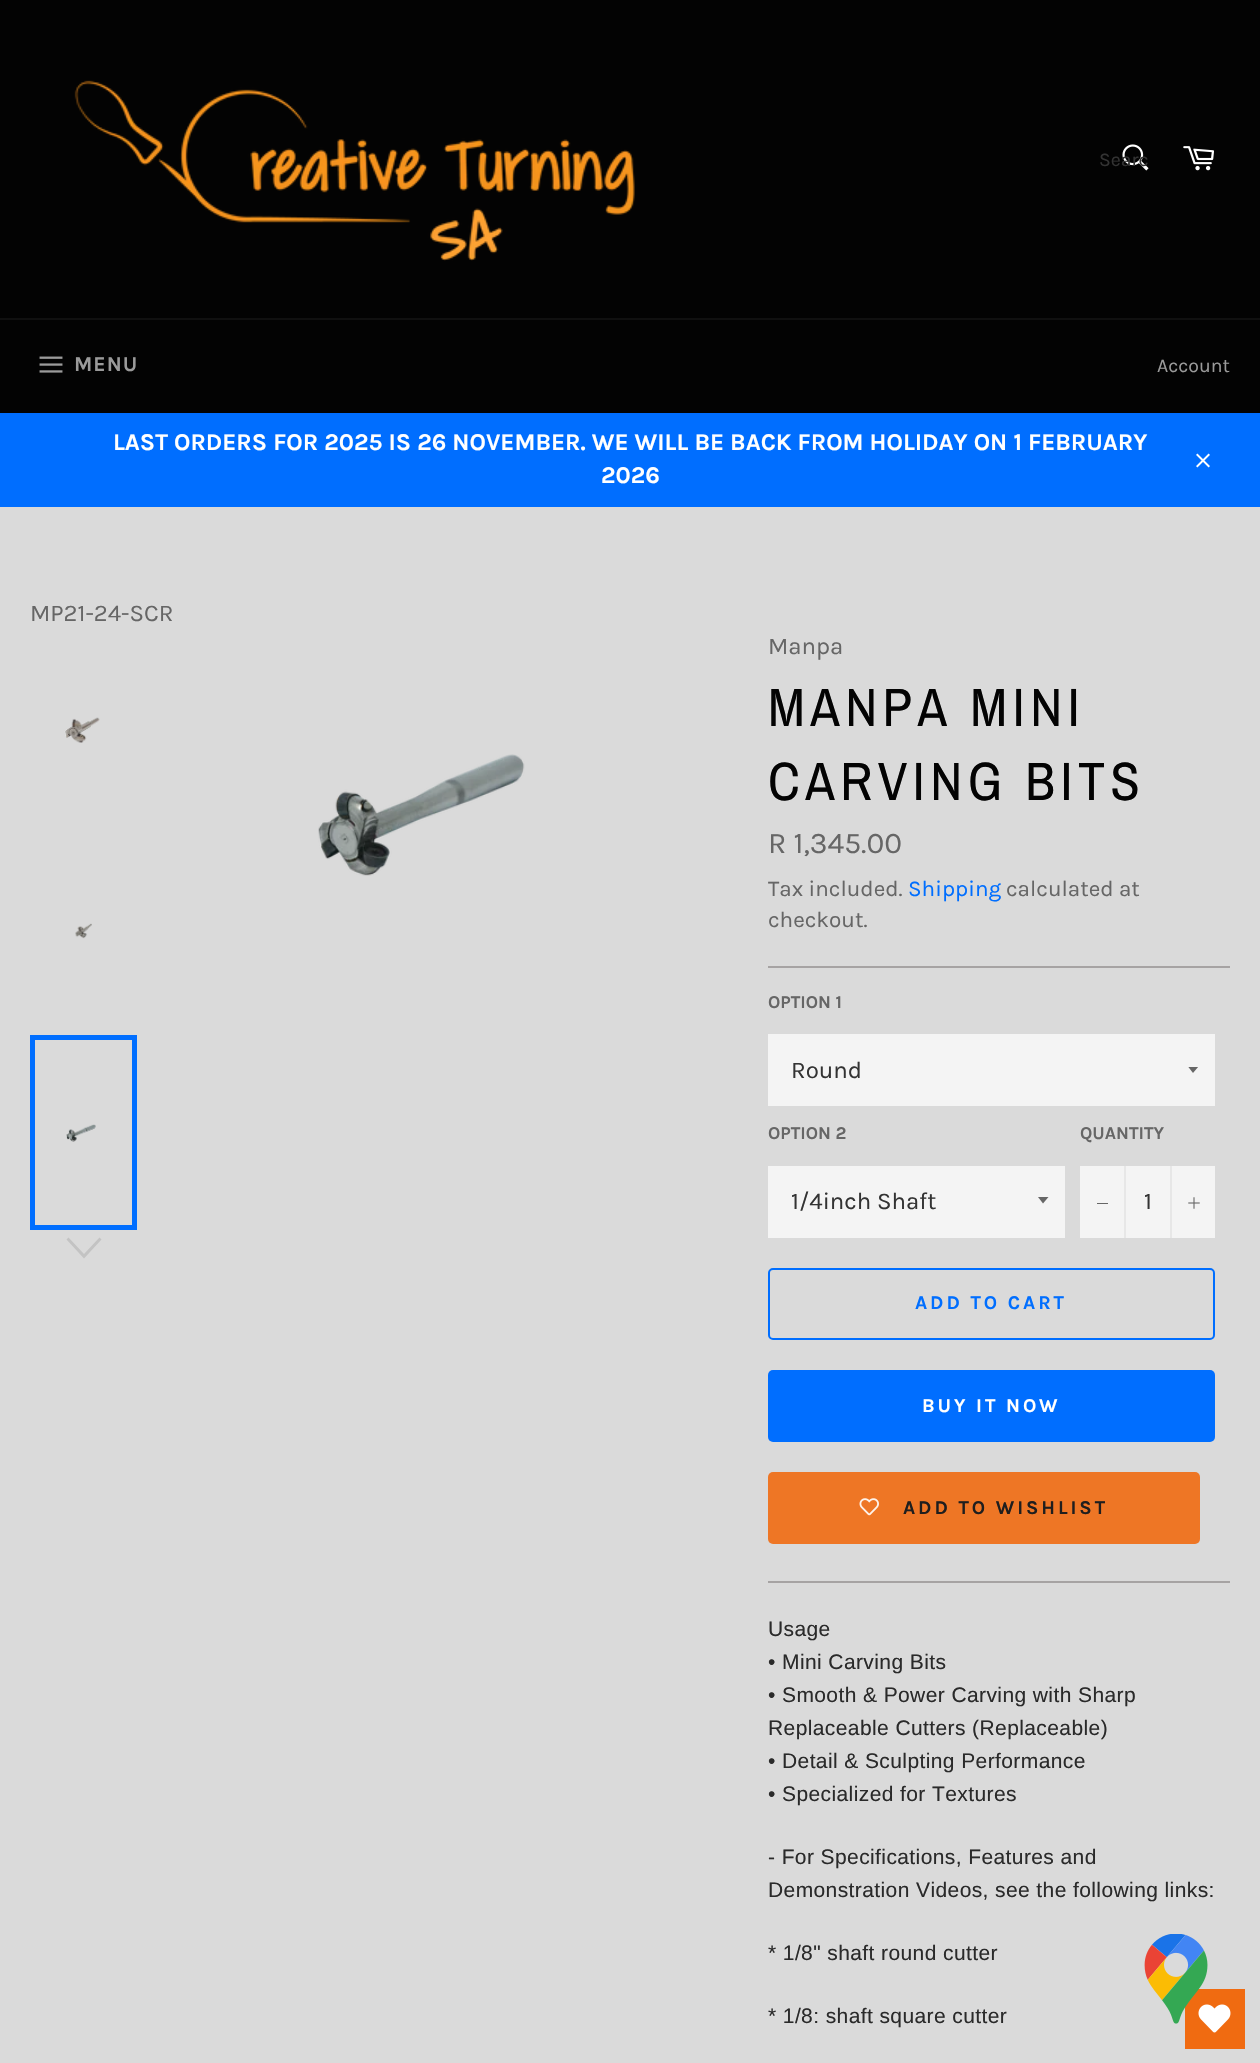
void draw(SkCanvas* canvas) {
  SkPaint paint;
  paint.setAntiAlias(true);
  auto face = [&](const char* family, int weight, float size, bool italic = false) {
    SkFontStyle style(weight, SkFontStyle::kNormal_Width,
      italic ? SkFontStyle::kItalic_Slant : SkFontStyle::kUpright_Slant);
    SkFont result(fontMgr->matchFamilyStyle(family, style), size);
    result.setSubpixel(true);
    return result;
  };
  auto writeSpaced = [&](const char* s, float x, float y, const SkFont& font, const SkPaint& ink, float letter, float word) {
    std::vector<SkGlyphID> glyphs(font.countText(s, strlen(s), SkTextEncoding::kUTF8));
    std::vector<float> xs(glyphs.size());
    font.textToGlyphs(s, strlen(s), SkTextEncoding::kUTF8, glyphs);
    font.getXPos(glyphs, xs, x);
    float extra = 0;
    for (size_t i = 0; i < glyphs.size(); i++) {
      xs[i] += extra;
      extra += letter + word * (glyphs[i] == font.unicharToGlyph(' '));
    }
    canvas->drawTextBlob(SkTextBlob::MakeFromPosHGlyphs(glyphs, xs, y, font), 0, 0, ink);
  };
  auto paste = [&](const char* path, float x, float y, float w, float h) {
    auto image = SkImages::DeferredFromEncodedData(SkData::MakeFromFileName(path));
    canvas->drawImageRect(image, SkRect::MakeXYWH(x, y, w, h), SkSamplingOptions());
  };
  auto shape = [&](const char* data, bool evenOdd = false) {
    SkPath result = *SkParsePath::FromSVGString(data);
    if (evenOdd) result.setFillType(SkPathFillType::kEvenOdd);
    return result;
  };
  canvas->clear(0xff030303);
  paste("img/1.png", 74, 80, 561, 181);
  paste("img/2.png", 1122, 144, 27, 27);
  paste("img/3.png", 1183, 146, 31, 25);
  paint.setColor(0xff101010);
  canvas->drawRect(SkRect::MakeXYWH(0, 318, 1260, 2), paint);
  paste("img/4.png", 39, 356, 24, 17);
  paint.setColor(0xff006eff);
  canvas->drawRect(SkRect::MakeXYWH(0, 413, 1260, 94), paint);
  paste("img/5.png", 1196, 453, 14, 15);
  paint.setColor(0xffdadada);
  canvas->drawRect(SkRect::MakeXYWH(0, 507, 1260, 1556), paint);
  paste("img/6.png", 64, 717, 36, 26);
  paste("img/7.png", 75, 923, 17, 16);
  paste("img/8.png", 66, 1124, 30, 18);
  paint.setStroke(true);
  paint.setStrokeWidth(5);
  paint.setColor(0xff006eff);
  canvas->drawRect(SkRect::MakeXYWH(32.5f, 1037.5f, 102, 190), paint);
  paint.setStroke(false);
  paint.setColor(0xffc3c3c3);
  canvas->drawPath(shape("M99.5 1237.5L101.5 1239.5L84 1258.5L66.5 1239.5L68.5 1237.5L84 1254Z"), paint);
  paste("img/9.png", 318, 754, 207, 122);
  paint.setColor(0xffa6a3a3);
  canvas->drawRect(SkRect::MakeXYWH(768, 966, 462, 2), paint);
  paint.setColor(0xfff4f4f4);
  canvas->drawRect(SkRect::MakeXYWH(768, 1034, 447, 72), paint);
  canvas->save();
  canvas->clipRect(SkRect::MakeXYWH(1188, 1067, 12, 7));
  paint.setColor(0xff666666);
  canvas->drawPath(shape("M1188 1066.5L1193 1073L1198.5 1066.5Z"), paint);
  canvas->restore();
  paint.setColor(0xfff4f4f4);
  canvas->drawRect(SkRect::MakeXYWH(768, 1166, 297, 72), paint);
  paint.setColor(0xff666666);
  canvas->drawPath(shape("M1038 1197L1043 1203.5L1048.5 1197Z"), paint);
  {
    const struct { float x, y, w, h; SkColor color; } items[] = {
      {1080, 1166, 135, 72, 0xfff4f4f4},
      {1124, 1166, 2, 72, 0xffe7e7e7},
      {1097, 1203, 11, 1, 0xff666666},
      {1170, 1166, 2, 72, 0xffe7e7e7},
    };
    for (auto [x, y, w, h, color] : items) {
      paint.setColor(color);
      canvas->drawRect(SkRect::MakeXYWH(x, y, w, h), paint);
    }
  }
  paste("img/10.png", 1188, 1197, 12, 12);
  paint.setStroke(true);
  paint.setStrokeWidth(2);
  paint.setColor(0xff006eff);
  canvas->drawRoundRect(SkRect::MakeXYWH(769, 1269, 445, 70), 4, 4, paint);
  paint.setStroke(false);
  canvas->drawRoundRect(SkRect::MakeXYWH(768, 1370, 447, 72), 5, 5, paint);
  paint.setColor(0xffee7625);
  canvas->drawRoundRect(SkRect::MakeXYWH(768, 1472, 432, 72), 5, 5, paint);
  paste("img/11.png", 859, 1498, 20, 18);
  paint.setColor(0xffa6a3a3);
  canvas->drawRect(SkRect::MakeXYWH(768, 1581, 462, 2), paint);
  paint.setColor(0xfff06b11);
  canvas->drawRect(SkRect::MakeXYWH(1185, 1989, 60, 60), paint);
  paste("img/13.png", 1198, 2004, 33, 29);
  paste("img/12.png", 1144, 1934, 64, 90);
  auto f0 = face("Karla", 400, 19.5f);
  paint.setColor(0xff333333);
  canvas->drawString("Searc", 1099, 166, f0, paint);
  auto f1 = face("Karla", 700, 21);
  paint.setColor(0xff9a9a9a);
  writeSpaced("MENU", 74, 371, f1, paint, 1, 0);
  canvas->drawString("Account", 1157, 372, f0, paint);
  auto f2 = face("Karla", 700, 24);
  paint.setColor(0xffffffff);
  canvas->drawString("LAST ORDERS FOR 2025 IS 26 NOVEMBER. WE WILL BE BACK FROM HOLIDAY ON 1 FEBRUARY", 113, 450, f2, paint);
  canvas->drawString("2026", 601, 483, f2, paint);
  auto f3 = face("Karla", 400, 24);
  paint.setColor(0xff666666);
  canvas->drawString("MP21-24-SCR", 30, 621, f3, paint);
  canvas->drawString("Manpa", 768, 654, f3, paint);
  auto f4 = face("Archivo Narrow", 400, 54);
  paint.setColor(0xff030303);
  writeSpaced("MANPA MINI", 768, 726, f4, paint, 5.4f, 0);
  writeSpaced("CARVING BITS", 768, 800, f4, paint, 5.4f, 0);
  auto f5 = face("Karla", 400, 30);
  paint.setColor(0xff666666);
  canvas->drawString("R 1,345.00", 768, 853, f5, paint);
  auto f6 = face("Karla", 400, 22.5f);
  canvas->drawString("Tax included.", 768, 896, f6, paint);
  paint.setColor(0xff006eff);
  canvas->drawString("Shipping", 908, 896, f6, paint);
  paint.setColor(0xff666666);
  canvas->drawString("calculated at", 1006, 896, f6, paint);
  canvas->drawString("checkout.", 768, 927, f6, paint);
  auto f7 = face("Karla", 700, 18);
  canvas->drawString("OPTION 1", 768, 1008, f7, paint);
  paint.setColor(0xff333333);
  canvas->drawString("Round", 791, 1078, f3, paint);
  paint.setColor(0xff666666);
  canvas->drawString("OPTION 2", 768, 1139, f7, paint);
  paint.setColor(0xff333333);
  canvas->drawString("1/4inch Shaft", 791, 1209, f3, paint);
  paint.setColor(0xff666666);
  canvas->drawString("QUANTITY", 1080, 1139, f7, paint);
  paint.setColor(0xff333333);
  canvas->drawString("1", 1144, 1209, f3, paint);
  auto f8 = face("Karla", 700, 19.5f);
  paint.setColor(0xff006eff);
  writeSpaced("ADD TO CART", 915, 1309, f8, paint, 2.9f, 0);
  paint.setColor(0xffffffff);
  writeSpaced("BUY IT NOW", 922, 1412, f8, paint, 2.9f, 0);
  paint.setColor(0xff1f1e1e);
  writeSpaced("ADD TO WISHLIST", 903, 1514, f8, paint, 2.9f, 0);
  auto f9 = face("Liberation Sans", 400, 21);
  paint.setColor(0xff2a2a2a);
  {
    const struct { const char* s; float x, y; } items[] = {
      {"Usage", 768, 1636},
      {"• Mini Carving Bits", 768, 1669},
      {"• Smooth & Power Carving with Sharp", 768, 1702},
      {"Replaceable Cutters (Replaceable)", 768, 1735},
      {"• Detail & Sculpting Performance", 768, 1768},
      {"• Specialized for Textures", 768, 1801},
      {"- For Specifications, Features and", 768, 1864},
      {"Demonstration Videos, see the following links:", 768, 1897},
      {"* 1/8\" shaft round cutter", 768, 1960},
      {"* 1/8: shaft square cutter", 768, 2023},
    };
    for (auto [s, x, y] : items) {
      writeSpaced(s, x, y, f9, paint, 0.4f, 0);
    }
  }
}
